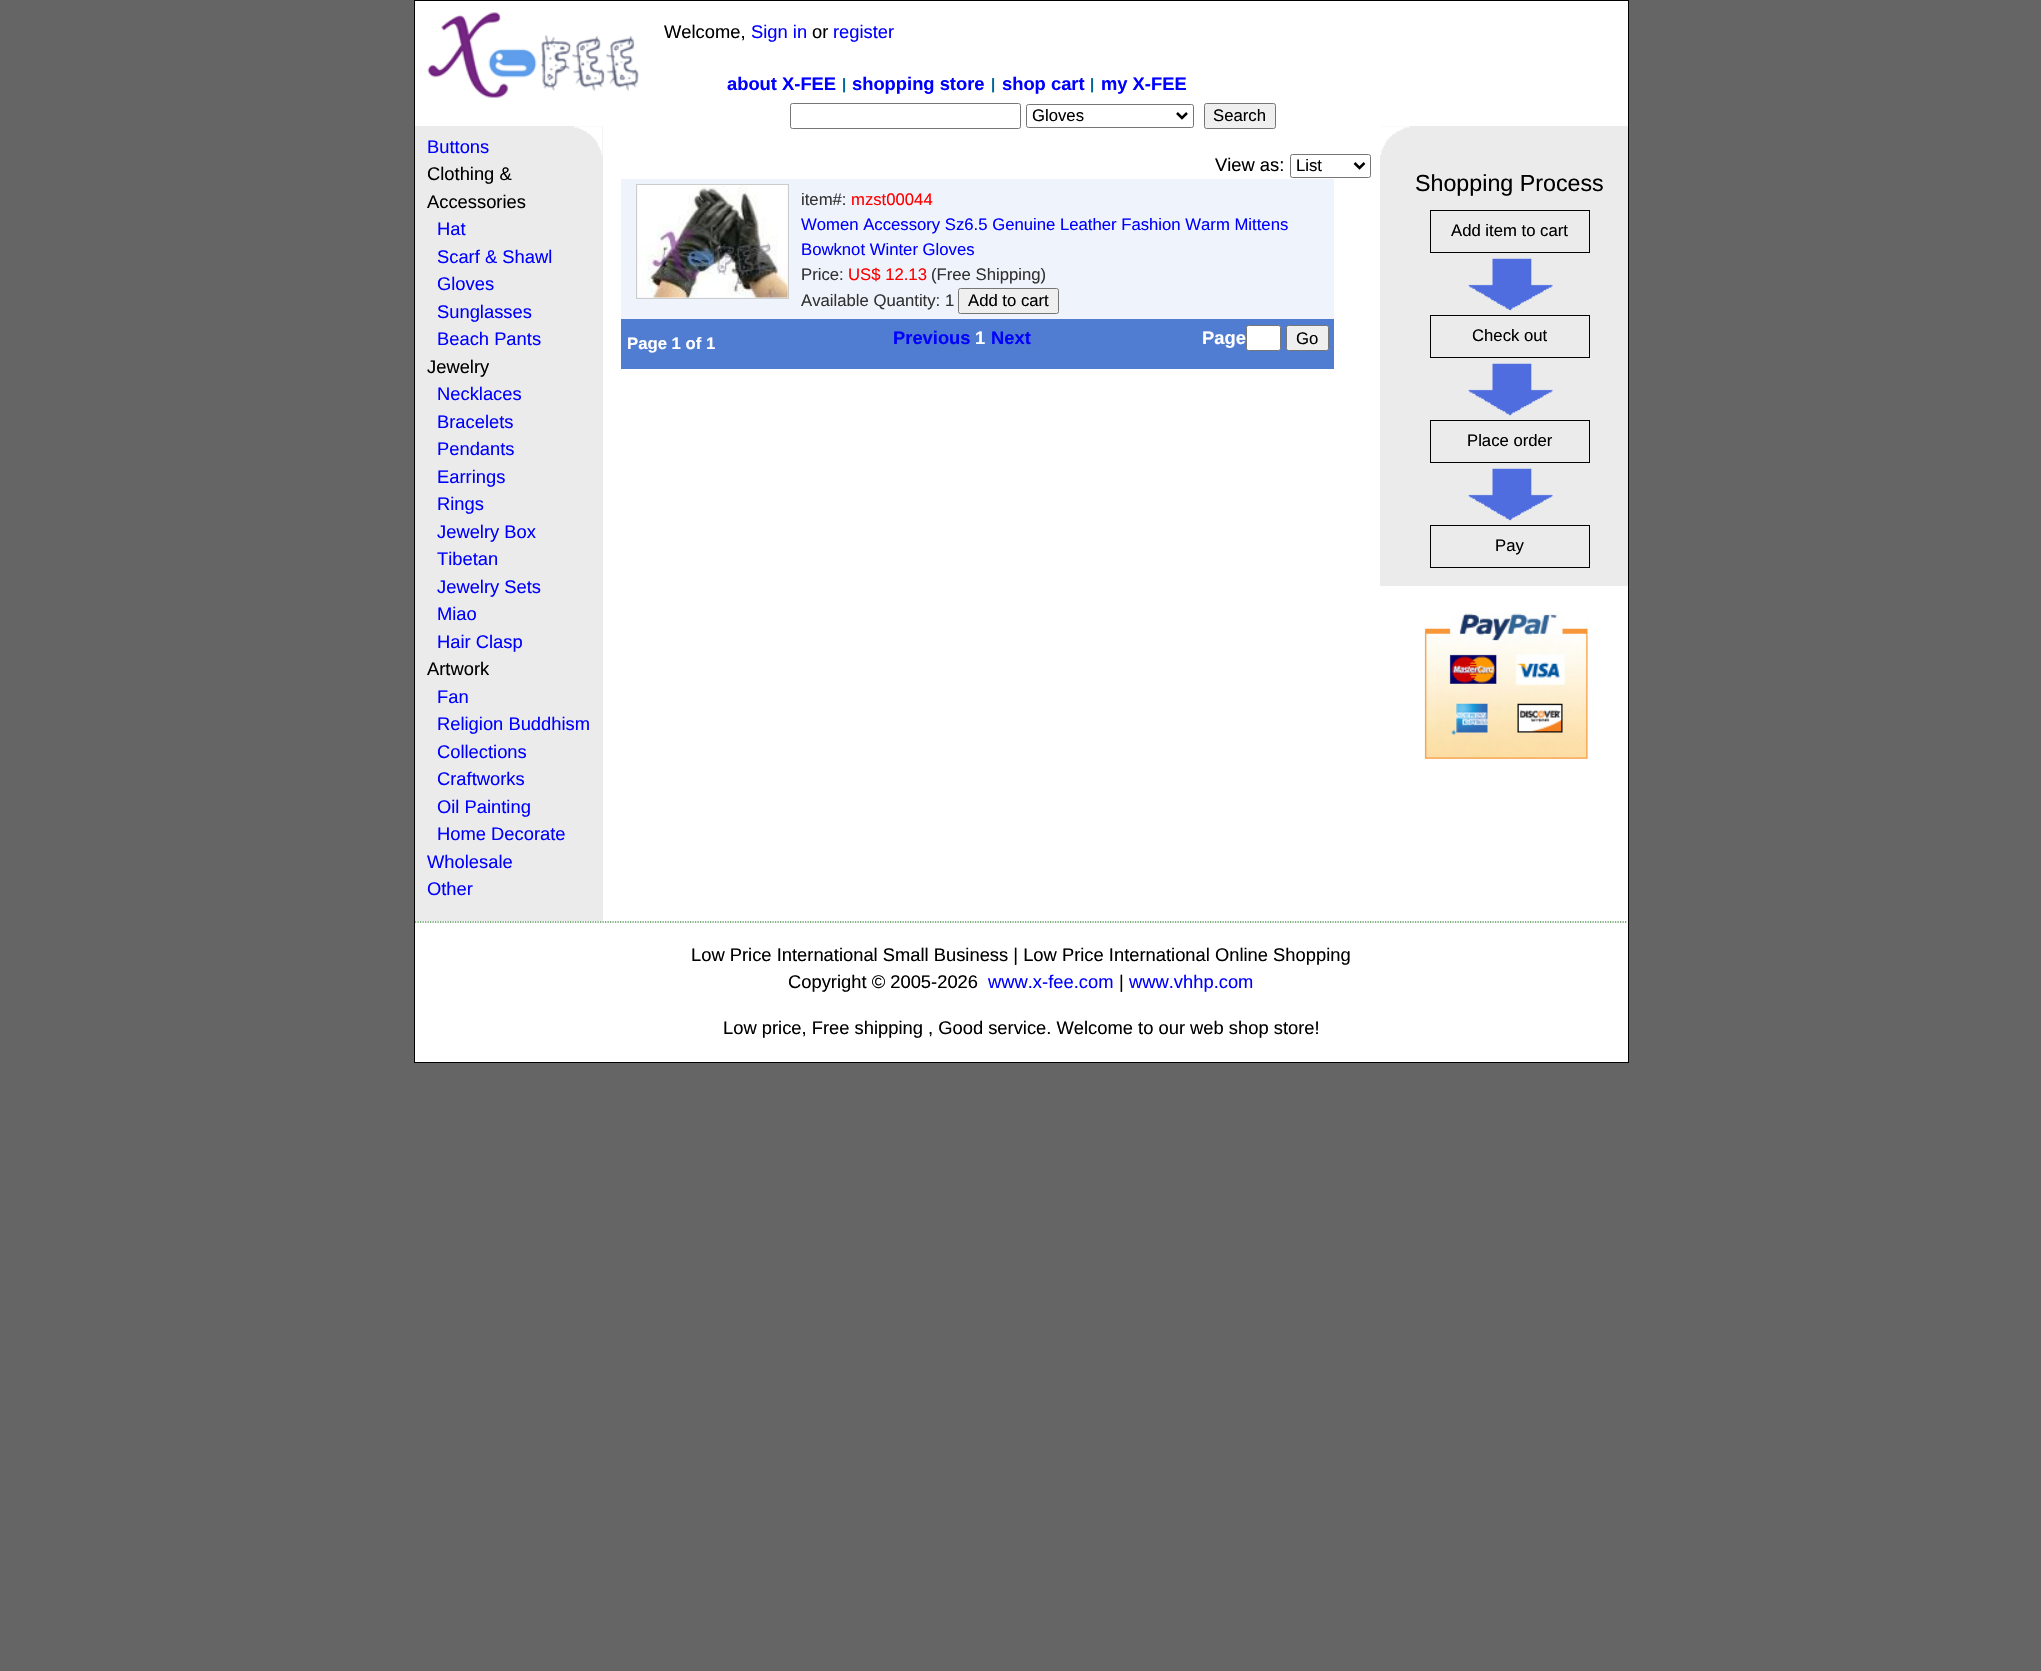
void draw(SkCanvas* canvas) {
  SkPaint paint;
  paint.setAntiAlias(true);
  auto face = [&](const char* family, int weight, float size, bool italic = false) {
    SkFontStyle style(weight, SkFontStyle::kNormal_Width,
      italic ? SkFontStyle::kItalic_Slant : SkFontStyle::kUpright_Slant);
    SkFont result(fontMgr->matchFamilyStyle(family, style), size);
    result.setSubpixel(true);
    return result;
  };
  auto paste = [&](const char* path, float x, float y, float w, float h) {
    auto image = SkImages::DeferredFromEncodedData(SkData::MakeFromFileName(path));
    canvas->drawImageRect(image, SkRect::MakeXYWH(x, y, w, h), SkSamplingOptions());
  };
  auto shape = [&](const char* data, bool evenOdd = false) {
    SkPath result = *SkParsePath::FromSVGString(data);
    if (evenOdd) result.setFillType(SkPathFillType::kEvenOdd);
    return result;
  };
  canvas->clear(0xff656565);
  paint.setColor(0xffffffff);
  canvas->drawRect(SkRect::MakeXYWH(414.5f, 0.5f, 1214, 1062), paint);
  paint.setStroke(true);
  paint.setStrokeWidth(1);
  paint.setColor(0xff000000);
  canvas->drawRect(SkRect::MakeXYWH(414.5f, 0.5f, 1214, 1062), paint);
  paste("img/1.png", 427, 12, 212, 86);
  paint.setColor(0xff767676);
  canvas->drawRoundRect(SkRect::MakeXYWH(790.5f, 103.5f, 230, 25), 2, 2, paint);
  canvas->drawRoundRect(SkRect::MakeXYWH(1026.5f, 104.5f, 167, 23), 2, 2, paint);
  paint.setStrokeWidth(2.5f);
  paint.setColor(0xff000000);
  canvas->drawPath(shape("M1177 113L1182 118L1187 113"), paint);
  paint.setStroke(false);
  paint.setColor(0xffefefef);
  canvas->drawRoundRect(SkRect::MakeXYWH(1204.5f, 103.5f, 71, 25), 2, 2, paint);
  paint.setStroke(true);
  paint.setStrokeWidth(1);
  paint.setColor(0xff767676);
  canvas->drawRoundRect(SkRect::MakeXYWH(1204.5f, 103.5f, 71, 25), 2, 2, paint);
  paint.setStroke(false);
  paint.setColor(0xffebebeb);
  canvas->drawRect(SkRect::MakeXYWH(415, 126, 188, 795), paint);
  paste("img/2.png", 574, 126, 29, 29);
  paint.setStroke(true);
  paint.setColor(0xff767676);
  canvas->drawRoundRect(SkRect::MakeXYWH(1290.5f, 154.5f, 80, 23), 2, 2, paint);
  paint.setStrokeWidth(2.5f);
  paint.setColor(0xff000000);
  canvas->drawPath(shape("M1354.5 163L1359.5 168L1364.5 163"), paint);
  paint.setStroke(false);
  paint.setColor(0xffeff3fb);
  canvas->drawRect(SkRect::MakeXYWH(621, 179, 713, 140), paint);
  paint.setStroke(true);
  paint.setStrokeWidth(1);
  paint.setColor(0xffcccccc);
  canvas->drawRect(SkRect::MakeXYWH(636.5f, 184.5f, 152, 114), paint);
  paste("img/3.png", 637, 185, 151, 113);
  paint.setStroke(false);
  paint.setColor(0xffefefef);
  canvas->drawRoundRect(SkRect::MakeXYWH(958.5f, 288.5f, 100, 25), 2, 2, paint);
  paint.setStroke(true);
  paint.setColor(0xff767676);
  canvas->drawRoundRect(SkRect::MakeXYWH(958.5f, 288.5f, 100, 25), 2, 2, paint);
  paint.setStroke(false);
  paint.setColor(0xff507cd1);
  canvas->drawRect(SkRect::MakeXYWH(621, 319, 713, 50), paint);
  paint.setColor(0xffffffff);
  canvas->drawRoundRect(SkRect::MakeXYWH(1246.5f, 325.5f, 34, 25), 2, 2, paint);
  paint.setStroke(true);
  paint.setColor(0xff767676);
  canvas->drawRoundRect(SkRect::MakeXYWH(1246.5f, 325.5f, 34, 25), 2, 2, paint);
  paint.setStroke(false);
  paint.setColor(0xffefefef);
  canvas->drawRoundRect(SkRect::MakeXYWH(1286.5f, 325.5f, 42, 25), 2, 2, paint);
  paint.setStroke(true);
  paint.setColor(0xff767676);
  canvas->drawRoundRect(SkRect::MakeXYWH(1286.5f, 325.5f, 42, 25), 2, 2, paint);
  paint.setStroke(false);
  paint.setColor(0xffebebeb);
  canvas->drawRect(SkRect::MakeXYWH(1380, 126, 248, 460), paint);
  paste("img/4.png", 1380, 126, 30, 29);
  paint.setStroke(true);
  paint.setColor(0xff000000);
  canvas->drawRect(SkRect::MakeXYWH(1430.5f, 210.5f, 159, 42), paint);
  paste("img/5.png", 1468, 258, 85, 53);
  canvas->drawRect(SkRect::MakeXYWH(1430.5f, 315.5f, 159, 42), paint);
  paste("img/5.png", 1468, 363, 85, 53);
  canvas->drawRect(SkRect::MakeXYWH(1430.5f, 420.5f, 159, 42), paint);
  paste("img/5.png", 1468, 468, 85, 53);
  canvas->drawRect(SkRect::MakeXYWH(1430.5f, 525.5f, 159, 42), paint);
  paste("img/6.png", 1424, 610, 166, 149);
  paint.setStrokeWidth(1.2f);
  paint.setColor(0xff006600);
  paint.setPathEffect(SkDashPathEffect::Make({{1.25f, 1.25f}}, 0));
  canvas->drawPath(shape("M415 922H1627.5"), paint);
  paint.setPathEffect(nullptr);
  auto f0 = face("Liberation Sans", 400, 18.35f);
  paint.setStroke(false);
  paint.setColor(0xff000000);
  canvas->drawString("Welcome,", 664, 38, f0, paint);
  paint.setColor(0xff0000ff);
  canvas->drawString("Sign in", 751, 38, f0, paint);
  paint.setColor(0xff000000);
  canvas->drawString("or", 812, 38, f0, paint);
  paint.setColor(0xff0000ff);
  canvas->drawString("register", 833, 38, f0, paint);
  auto f1 = face("Liberation Sans", 700, 18.35f);
  canvas->drawString("about X-FEE", 727, 90, f1, paint);
  auto f2 = face("Liberation Sans", 700, 15);
  paint.setColor(0xff006699);
  canvas->drawString("|", 842, 89, f2, paint);
  paint.setColor(0xff0000ff);
  canvas->drawString("shopping store", 852, 90, f1, paint);
  paint.setColor(0xff006699);
  canvas->drawString("|", 991, 89, f2, paint);
  paint.setColor(0xff0000ff);
  canvas->drawString("shop cart", 1002, 90, f1, paint);
  paint.setColor(0xff006699);
  canvas->drawString("|", 1090, 89, f2, paint);
  paint.setColor(0xff0000ff);
  canvas->drawString("my X-FEE", 1101, 90, f1, paint);
  auto f3 = face("Liberation Sans", 400, 16.7f);
  paint.setColor(0xff000000);
  canvas->drawString("Gloves", 1032, 121, f3, paint);
  canvas->drawString("Search", 1213, 121, f3, paint);
  paint.setColor(0xff0000ff);
  canvas->drawString("Buttons", 427, 153, f0, paint);
  paint.setColor(0xff000000);
  canvas->drawString("Clothing &", 427, 180, f0, paint);
  canvas->drawString("Accessories", 427, 208, f0, paint);
  paint.setColor(0xff0000ff);
  {
    const struct { const char* s; float x, y; } items[] = {
      {"Hat", 437, 235},
      {"Scarf & Shawl", 437, 263},
      {"Gloves", 437, 290},
      {"Sunglasses", 437, 318},
      {"Beach Pants", 437, 345},
    };
    for (auto [s, x, y] : items) {
      canvas->drawString(s, x, y, f0, paint);
    }
  }
  paint.setColor(0xff000000);
  canvas->drawString("Jewelry", 427, 373, f0, paint);
  paint.setColor(0xff0000ff);
  {
    const struct { const char* s; float x, y; } items[] = {
      {"Necklaces", 437, 400},
      {"Bracelets", 437, 428},
      {"Pendants", 437, 455},
      {"Earrings", 437, 483},
      {"Rings", 437, 510},
      {"Jewelry Box", 437, 538},
      {"Tibetan", 437, 565},
      {"Jewelry Sets", 437, 593},
      {"Miao", 437, 620},
      {"Hair Clasp", 437, 648},
    };
    for (auto [s, x, y] : items) {
      canvas->drawString(s, x, y, f0, paint);
    }
  }
  paint.setColor(0xff000000);
  canvas->drawString("Artwork", 427, 675, f0, paint);
  paint.setColor(0xff0000ff);
  {
    const struct { const char* s; float x, y; } items[] = {
      {"Fan", 437, 703},
      {"Religion Buddhism", 437, 730},
      {"Collections", 437, 758},
      {"Craftworks", 437, 785},
      {"Oil Painting", 437, 813},
      {"Home Decorate", 437, 840},
      {"Wholesale", 427, 868},
      {"Other", 427, 895},
    };
    for (auto [s, x, y] : items) {
      canvas->drawString(s, x, y, f0, paint);
    }
  }
  paint.setColor(0xff000000);
  canvas->drawString("View as:", 1215, 171, f0, paint);
  canvas->drawString("List", 1296, 171, f3, paint);
  paint.setColor(0xff333333);
  canvas->drawString("item#:", 801, 205, f3, paint);
  paint.setColor(0xffff0000);
  canvas->drawString("mzst00044", 851, 205, f3, paint);
  paint.setColor(0xff0000ff);
  canvas->drawString("Women Accessory Sz6.5 Genuine Leather Fashion Warm Mittens", 801, 230, f3, paint);
  canvas->drawString("Bowknot Winter Gloves", 801, 255, f3, paint);
  paint.setColor(0xff333333);
  canvas->drawString("Price:", 801, 280, f3, paint);
  paint.setColor(0xffff0000);
  canvas->drawString("US$ 12.13", 848, 280, f3, paint);
  paint.setColor(0xff333333);
  canvas->drawString("(Free Shipping)", 931, 280, f3, paint);
  canvas->drawString("Available Quantity: 1", 801, 306, f3, paint);
  paint.setColor(0xff000000);
  canvas->drawString("Add to cart", 968, 306, f3, paint);
  auto f4 = face("Liberation Sans", 700, 16.7f);
  paint.setColor(0xffffffff);
  canvas->drawString("Page 1 of 1", 627, 349, f4, paint);
  paint.setColor(0xff0000ff);
  canvas->drawString("Previous", 893, 344, f1, paint);
  paint.setColor(0xffffffff);
  canvas->drawString("1", 975, 344, f1, paint);
  paint.setColor(0xff0000ff);
  canvas->drawString("Next", 991, 344, f1, paint);
  paint.setColor(0xffffffff);
  canvas->drawString("Page", 1202, 344, f1, paint);
  paint.setColor(0xff000000);
  canvas->drawString("Go", 1296, 344, f3, paint);
  auto f5 = face("Liberation Sans", 400, 23.25f);
  canvas->drawString("Shopping Process", 1415, 191, f5, paint);
  {
    const struct { const char* s; float x, y; } items[] = {
      {"Add item to cart", 1451, 236},
      {"Check out", 1472, 341},
      {"Place order", 1467, 446},
      {"Pay", 1495, 551},
    };
    for (auto [s, x, y] : items) {
      canvas->drawString(s, x, y, f3, paint);
    }
  }
  canvas->drawString("Low Price International Small Business | Low Price International Online Shopping", 691, 961, f0, paint);
  canvas->drawString("Copyright © 2005-2026", 788, 988, f0, paint);
  paint.setColor(0xff0000ff);
  canvas->drawString("www.x-fee.com", 988, 988, f0, paint);
  paint.setColor(0xff000000);
  canvas->drawString("|", 1119, 988, f0, paint);
  paint.setColor(0xff0000ff);
  canvas->drawString("www.vhhp.com", 1129, 988, f0, paint);
  paint.setColor(0xff000000);
  canvas->drawString("Low price, Free shipping , Good service. Welcome to our web shop store!", 723, 1034, f0, paint);
}
